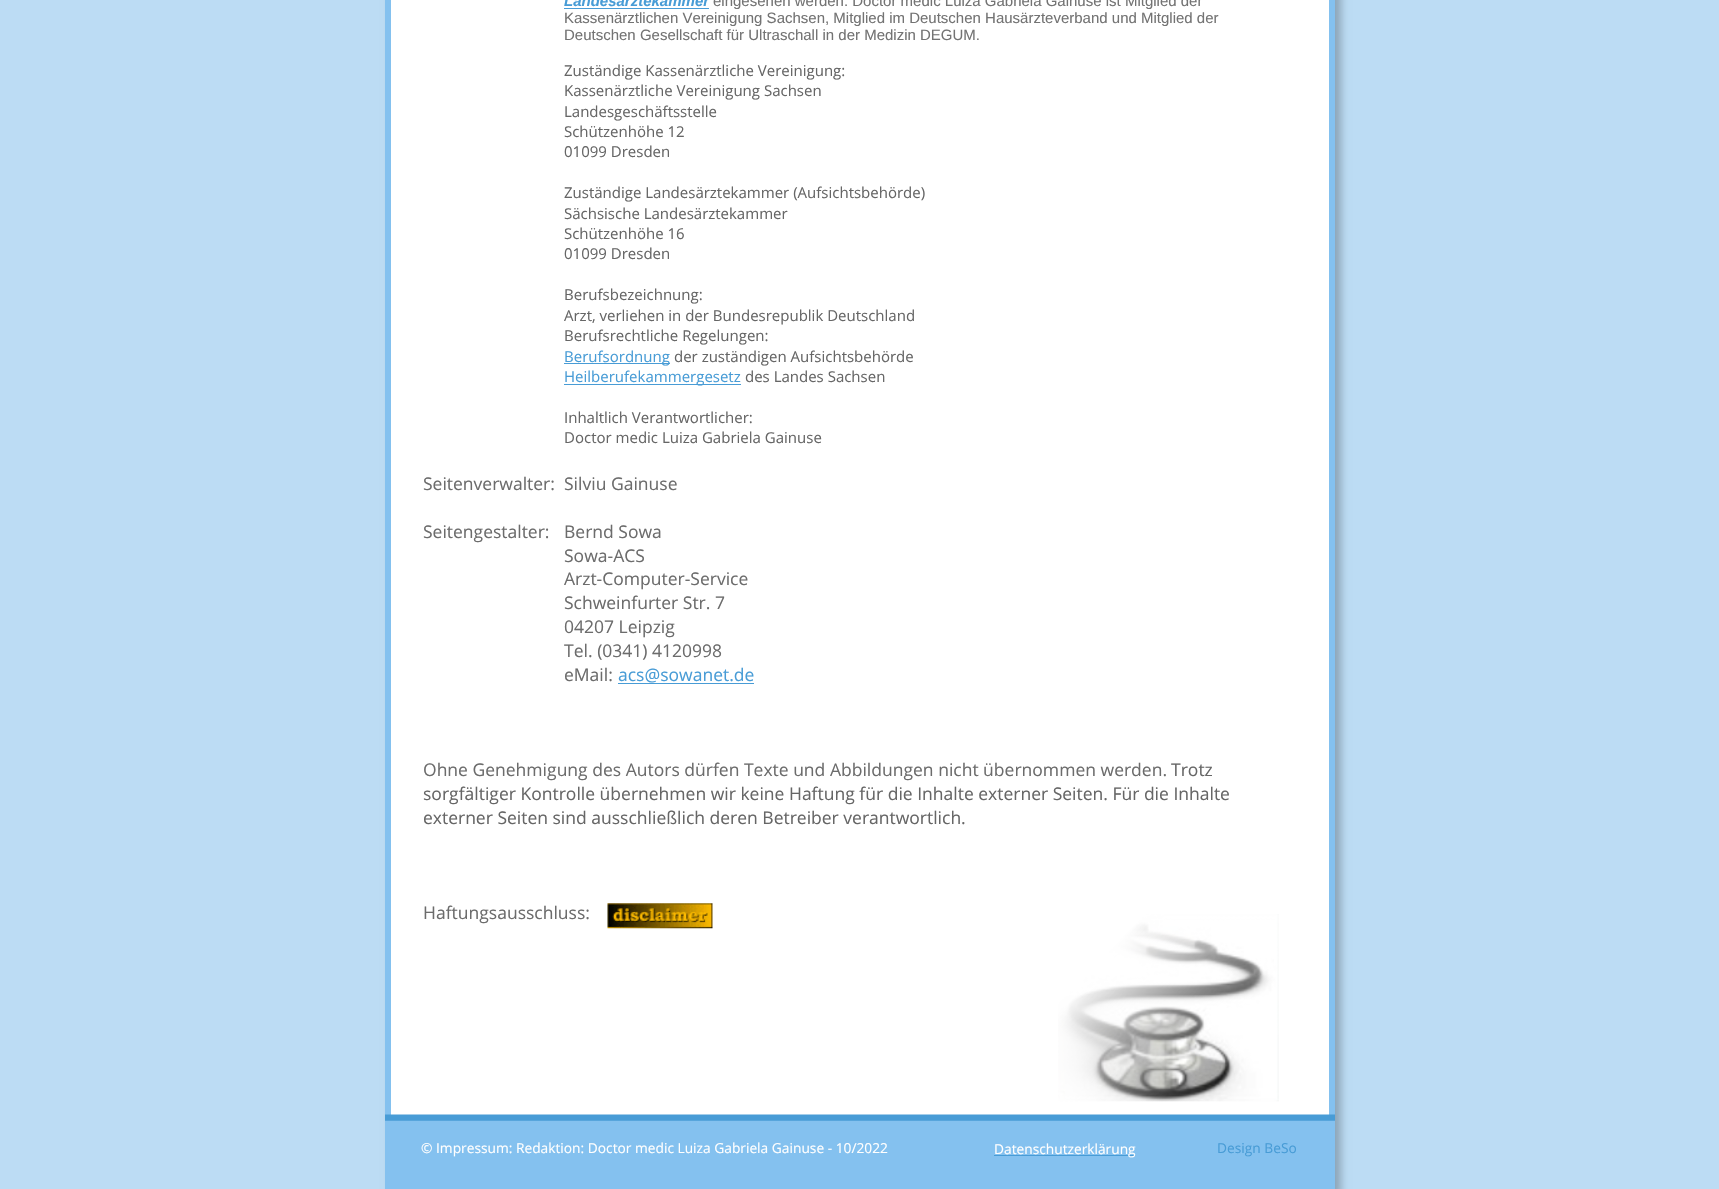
void draw(SkCanvas* canvas) {
  SkPaint paint;
  paint.setAntiAlias(true);
  auto face = [&](const char* family, int weight, float size, bool italic = false) {
    SkFontStyle style(weight, SkFontStyle::kNormal_Width,
      italic ? SkFontStyle::kItalic_Slant : SkFontStyle::kUpright_Slant);
    SkFont result(fontMgr->matchFamilyStyle(family, style), size);
    result.setSubpixel(true);
    return result;
  };
  auto paste = [&](const char* path, float x, float y, float w, float h) {
    auto image = SkImages::DeferredFromEncodedData(SkData::MakeFromFileName(path));
    canvas->drawImageRect(image, SkRect::MakeXYWH(x, y, w, h), SkSamplingOptions());
  };
  canvas->clear(0xffbcdcf4);
  paint.setColor(0x40000000);
  paint.setMaskFilter(SkMaskFilter::MakeBlur(kNormal_SkBlurStyle, 4));
  canvas->drawRect(SkRect::MakeXYWH(391, -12, 950, 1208), paint);
  paint.setMaskFilter(nullptr);
  {
    const struct { float x, y, w, h; SkColor color; } items[] = {
      {385, 0, 950, 1115, 0xff84c1ef},
      {391, 0, 938, 1115, 0xffffffff},
      {564, 8, 145, 1, 0xff489cd6},
      {564, 363, 106, 1, 0xff489cd6},
      {564, 384, 177, 1, 0xff489cd6},
      {618, 683, 136, 1, 0xff489cd6},
    };
    for (auto [x, y, w, h, color] : items) {
      paint.setColor(color);
      canvas->drawRect(SkRect::MakeXYWH(x, y, w, h), paint);
    }
  }
  paste("img/1.png", 607, 903, 106, 26);
  paste("img/2.png", 1058, 914, 221, 188);
  paste("img/3.png", 385, 1114, 950, 75);
  canvas->drawRect(SkRect::MakeXYWH(994, 1155, 141, 1), paint);
  auto f0 = face("Liberation Sans", 700, 15, true);
  canvas->drawString("Landesärztekammer", 564, 6, f0, paint);
  auto f1 = face("Liberation Sans", 400, 15);
  paint.setColor(0xff737373);
  {
    const struct { const char* s; float x, y; } items[] = {
      {"eingesehen werden. Doctor medic Luiza Gabriela Gainuse ist Mitglied der", 713, 6},
      {"Kassenärztlichen Vereinigung Sachsen, Mitglied im Deutschen Hausärzteverband und Mitglied der", 564, 23},
      {"Deutschen Gesellschaft für Ultraschall in der Medizin DEGUM.", 564, 40},
    };
    for (auto [s, x, y] : items) {
      canvas->drawString(s, x, y, f1, paint);
    }
  }
  auto f2 = face("Open Sans", 400, 15);
  paint.setColor(0xff666666);
  {
    const struct { const char* s; float x, y; } items[] = {
      {"Zuständige Kassenärztliche Vereinigung:", 564, 76},
      {"Kassenärztliche Vereinigung Sachsen", 564, 96},
      {"Landesgeschäftsstelle", 564, 117},
      {"Schützenhöhe 12", 564, 137},
      {"01099 Dresden", 564, 157},
      {"Zuständige Landesärztekammer (Aufsichtsbehörde)", 564, 198},
      {"Sächsische Landesärztekammer", 564, 219},
      {"Schützenhöhe 16", 564, 239},
      {"01099 Dresden", 564, 259},
      {"Berufsbezeichnung:", 564, 300},
      {"Arzt, verliehen in der Bundesrepublik Deutschland", 564, 321},
      {"Berufsrechtliche Regelungen:", 564, 341},
    };
    for (auto [s, x, y] : items) {
      canvas->drawString(s, x, y, f2, paint);
    }
  }
  paint.setColor(0xff489cd6);
  canvas->drawString("Berufsordnung", 564, 362, f2, paint);
  paint.setColor(0xff666666);
  canvas->drawString("der zuständigen Aufsichtsbehörde", 674, 362, f2, paint);
  paint.setColor(0xff489cd6);
  canvas->drawString("Heilberufekammergesetz", 564, 382, f2, paint);
  paint.setColor(0xff666666);
  {
    const struct { const char* s; float x, y; } items[] = {
      {"des Landes Sachsen", 745, 382},
      {"Inhaltlich Verantwortlicher:", 564, 423},
      {"Doctor medic Luiza Gabriela Gainuse", 564, 443},
    };
    for (auto [s, x, y] : items) {
      canvas->drawString(s, x, y, f2, paint);
    }
  }
  auto f3 = face("Open Sans", 400, 17.5f);
  paint.setColor(0xff6c6c6c);
  {
    const struct { const char* s; float x, y; } items[] = {
      {"Seitenverwalter:", 423, 490},
      {"Silviu Gainuse", 564, 490},
      {"Seitengestalter:", 423, 538},
      {"Bernd Sowa", 564, 538},
      {"Sowa-ACS", 564, 562},
      {"Arzt-Computer-Service", 564, 585},
      {"Schweinfurter Str. 7", 564, 609},
      {"04207 Leipzig", 564, 633},
      {"Tel. (0341) 4120998", 564, 657},
      {"eMail:", 564, 681},
    };
    for (auto [s, x, y] : items) {
      canvas->drawString(s, x, y, f3, paint);
    }
  }
  paint.setColor(0xff489cd6);
  canvas->drawString("acs@sowanet.de", 618, 681, f3, paint);
  paint.setColor(0xff6c6c6c);
  canvas->drawString("Ohne Genehmigung des Autors dürfen Texte und Abbildungen nicht übernommen werden.", 423, 776, f3, paint);
  paint.setColor(0xff666666);
  {
    const struct { const char* s; float x, y; } items[] = {
      {"Trotz", 1171, 776},
      {"sorgfältiger Kontrolle übernehmen wir keine Haftung für die Inhalte externer Seiten. Für die Inhalte", 423, 800},
      {"externer Seiten sind ausschließlich deren Betreiber verantwortlich.", 423, 824},
    };
    for (auto [s, x, y] : items) {
      canvas->drawString(s, x, y, f3, paint);
    }
  }
  paint.setColor(0xff6c6c6c);
  canvas->drawString("Haftungsausschluss:", 423, 919, f3, paint);
  auto f4 = face("Open Sans", 400, 13.75f);
  paint.setColor(0xffffffff);
  canvas->drawString("© Impressum: Redaktion: Doctor medic Luiza Gabriela Gainuse - 10/2022", 421, 1153, f4, paint);
  canvas->drawString("Datenschutzerklärung", 994, 1154, f4, paint);
  paint.setColor(0xff489cd6);
  canvas->drawString("Design BeSo", 1217, 1153, f4, paint);
}
